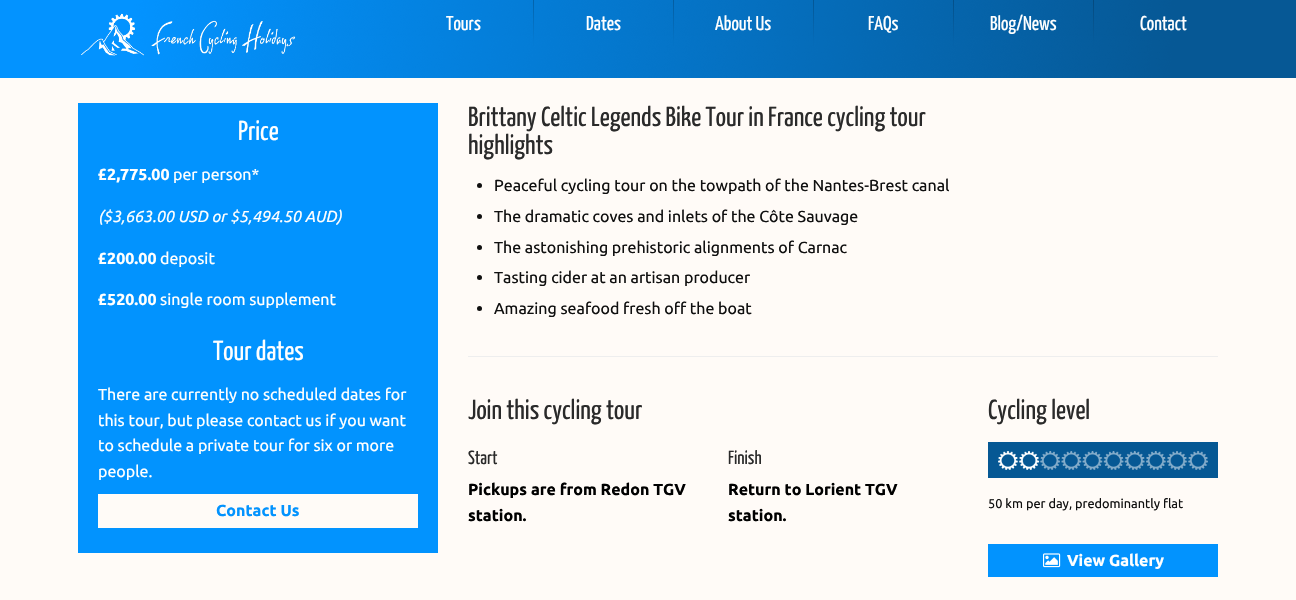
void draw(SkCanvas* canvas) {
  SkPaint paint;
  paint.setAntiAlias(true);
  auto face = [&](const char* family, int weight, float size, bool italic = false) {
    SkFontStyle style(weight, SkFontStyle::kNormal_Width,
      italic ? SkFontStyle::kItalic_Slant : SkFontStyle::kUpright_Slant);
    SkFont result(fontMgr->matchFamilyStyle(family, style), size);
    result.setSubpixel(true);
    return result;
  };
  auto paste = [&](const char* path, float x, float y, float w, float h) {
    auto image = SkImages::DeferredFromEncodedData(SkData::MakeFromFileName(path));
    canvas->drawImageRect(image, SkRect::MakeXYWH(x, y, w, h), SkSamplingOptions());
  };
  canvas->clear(0xfffffbf7);
  paste("img/1.png", 0, 0, 1296, 78);
  paste("img/2.png", 81, 13, 215, 43);
  {
    const SkColor colors[] = {0xff0363ab, 0xff047bd4};
    const float stops[] = {0.01f, 0.9f};
    const SkPoint ends[] = {{534, 0}, {534, 46}};
    paint.setShader(SkGradientShader::MakeLinear(ends, colors, stops, 2, SkTileMode::kClamp));
    paint.setAlpha(255);
  }
  canvas->drawRect(SkRect::MakeXYWH(533, 0, 1, 46), paint);
  {
    const SkColor colors[] = {0xff045da0, 0xff0473c6};
    const float stops[] = {0.01f, 0.9f};
    const SkPoint ends[] = {{674, 0}, {674, 46}};
    paint.setShader(SkGradientShader::MakeLinear(ends, colors, stops, 2, SkTileMode::kClamp));
    paint.setAlpha(255);
  }
  canvas->drawRect(SkRect::MakeXYWH(673, 0, 1, 46), paint);
  {
    const SkColor colors[] = {0xff045795, 0xff056bb8};
    const float stops[] = {0.01f, 0.9f};
    const SkPoint ends[] = {{814, 0}, {814, 46}};
    paint.setShader(SkGradientShader::MakeLinear(ends, colors, stops, 2, SkTileMode::kClamp));
    paint.setAlpha(255);
  }
  canvas->drawRect(SkRect::MakeXYWH(813, 0, 1, 46), paint);
  {
    const SkColor colors[] = {0xff045089, 0xff0563aa};
    const float stops[] = {0.01f, 0.9f};
    const SkPoint ends[] = {{954, 0}, {954, 46}};
    paint.setShader(SkGradientShader::MakeLinear(ends, colors, stops, 2, SkTileMode::kClamp));
    paint.setAlpha(255);
  }
  canvas->drawRect(SkRect::MakeXYWH(953, 0, 1, 46), paint);
  {
    const SkColor colors[] = {0xff054a7e, 0xff065c9c};
    const float stops[] = {0.01f, 0.9f};
    const SkPoint ends[] = {{1094, 0}, {1094, 46}};
    paint.setShader(SkGradientShader::MakeLinear(ends, colors, stops, 2, SkTileMode::kClamp));
    paint.setAlpha(255);
  }
  canvas->drawRect(SkRect::MakeXYWH(1093, 0, 1, 46), paint);
  paint.setShader(nullptr);
  paint.setColor(0xff0293fe);
  canvas->drawRect(SkRect::MakeXYWH(78, 103, 360, 450), paint);
  paint.setColor(0xfffffbf7);
  canvas->drawRect(SkRect::MakeXYWH(98, 494, 320, 34), paint);
  paint.setColor(0xff101010);
  canvas->drawCircle(479.5f, 185.5f, 2.5f, paint);
  canvas->drawCircle(479.5f, 216.5f, 2.5f, paint);
  canvas->drawCircle(479.5f, 247.5f, 2.5f, paint);
  canvas->drawCircle(479.5f, 277.5f, 2.5f, paint);
  canvas->drawCircle(479.5f, 308.5f, 2.5f, paint);
  paint.setColor(0xffeeeeee);
  canvas->drawRect(SkRect::MakeXYWH(468, 356, 750, 1), paint);
  paint.setColor(0xff065894);
  canvas->drawRect(SkRect::MakeXYWH(988, 442, 230, 36), paint);
  paste("img/3.png", 998, 451, 210, 19);
  paint.setColor(0xff0293fe);
  canvas->drawRect(SkRect::MakeXYWH(988, 544, 230, 33), paint);
  paste("img/4.png", 1043, 553, 18, 15);
  auto f0 = face("Yanone Kaffeesatz", 400, 20);
  paint.setColor(0xffffffff);
  {
    const struct { const char* s; float x, y; } items[] = {
      {"Tours", 446, 30},
      {"Dates", 586, 30},
      {"About Us", 715, 30},
      {"FAQs", 868, 30},
      {"Blog/News", 990, 30},
      {"Contact", 1140, 30},
    };
    for (auto [s, x, y] : items) {
      canvas->drawString(s, x, y, f0, paint);
    }
  }
  auto f1 = face("Yanone Kaffeesatz", 400, 27.6f);
  canvas->drawString("Price", 238, 140, f1, paint);
  auto f2 = face("Ubuntu", 700, 16);
  canvas->drawString("£2,775.00", 98, 180, f2, paint);
  auto f3 = face("Ubuntu", 400, 16);
  canvas->drawString("per person*", 173, 180, f3, paint);
  auto f4 = face("Ubuntu", 400, 16, true);
  canvas->drawString("($3,663.00 USD or $5,494.50 AUD)", 98, 222, f4, paint);
  canvas->drawString("£200.00", 98, 264, f2, paint);
  canvas->drawString("deposit", 160, 264, f3, paint);
  canvas->drawString("£520.00", 98, 305, f2, paint);
  canvas->drawString("single room supplement", 160, 305, f3, paint);
  canvas->drawString("Tour dates", 213, 360, f1, paint);
  {
    const struct { const char* s; float x, y; } items[] = {
      {"There are currently no scheduled dates for", 98, 400},
      {"this tour, but please contact us if you want", 98, 426},
      {"to schedule a private tour for six or more", 98, 451},
      {"people.", 98, 477},
    };
    for (auto [s, x, y] : items) {
      canvas->drawString(s, x, y, f3, paint);
    }
  }
  paint.setColor(0xff0293fe);
  canvas->drawString("Contact Us", 216, 516, f2, paint);
  paint.setColor(0xff2a2a2a);
  canvas->drawString("Brittany Celtic Legends Bike Tour in France cycling tour", 468, 126, f1, paint);
  canvas->drawString("highlights", 468, 154, f1, paint);
  paint.setColor(0xff101010);
  {
    const struct { const char* s; float x, y; } items[] = {
      {"Peaceful cycling tour on the towpath of the Nantes-Brest canal", 494, 191},
      {"The dramatic coves and inlets of the Côte Sauvage", 494, 222},
      {"The astonishing prehistoric alignments of Carnac", 494, 253},
      {"Tasting cider at an artisan producer", 494, 283},
      {"Amazing seafood fresh off the boat", 494, 314},
    };
    for (auto [s, x, y] : items) {
      canvas->drawString(s, x, y, f3, paint);
    }
  }
  paint.setColor(0xff2a2a2a);
  canvas->drawString("Join this cycling tour", 468, 419, f1, paint);
  auto f5 = face("Yanone Kaffeesatz", 400, 19);
  canvas->drawString("Start", 468, 464, f5, paint);
  paint.setColor(0xff000000);
  canvas->drawString("Pickups are from Redon TGV", 468, 495, f2, paint);
  canvas->drawString("station.", 468, 521, f2, paint);
  paint.setColor(0xff2a2a2a);
  canvas->drawString("Finish", 728, 464, f5, paint);
  paint.setColor(0xff000000);
  canvas->drawString("Return to Lorient TGV", 728, 495, f2, paint);
  canvas->drawString("station.", 728, 521, f2, paint);
  paint.setColor(0xff2a2a2a);
  canvas->drawString("Cycling level", 988, 419, f1, paint);
  auto f6 = face("Ubuntu", 400, 12.75f);
  paint.setColor(0xff101010);
  canvas->drawString("50 km per day, predominantly flat", 988, 508, f6, paint);
  paint.setColor(0xffffffff);
  canvas->drawString("View Gallery", 1067, 566, f2, paint);
}
